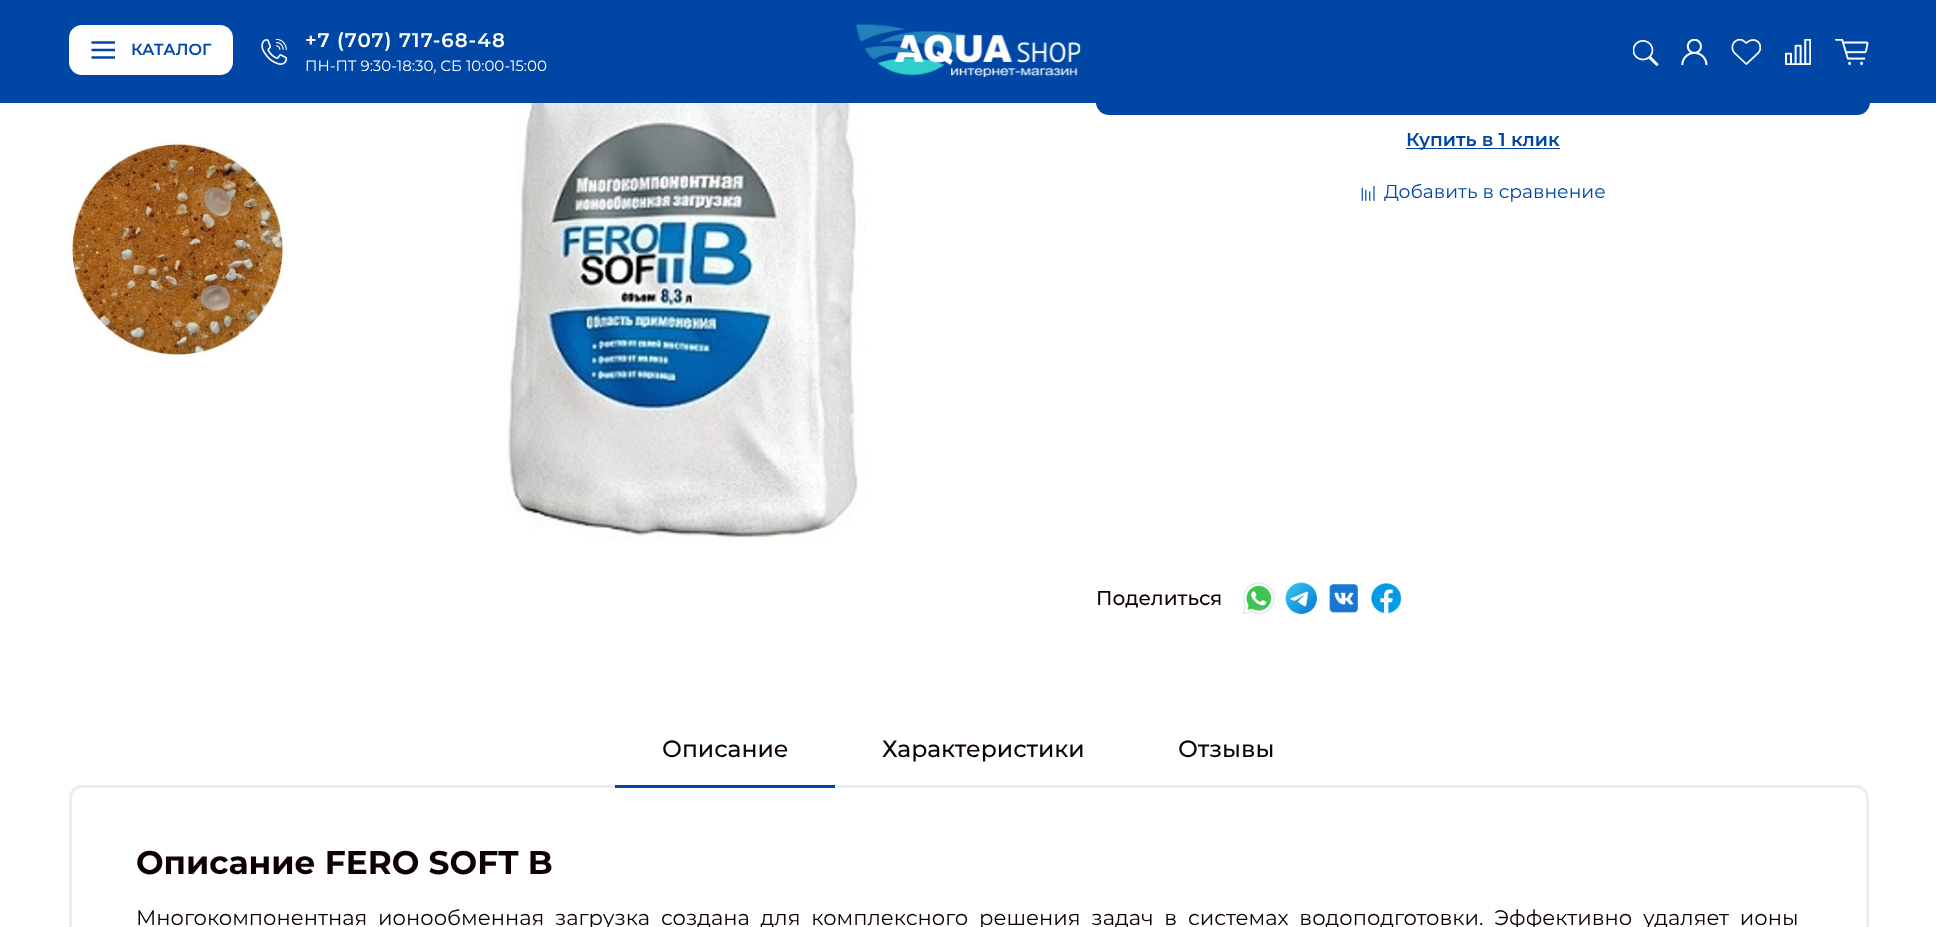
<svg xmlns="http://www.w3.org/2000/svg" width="1936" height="927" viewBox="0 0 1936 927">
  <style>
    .t1 { font: 600 16px Montserrat; fill: #0046a5; }
    .t2 { font: 600 19.75px Montserrat; letter-spacing: 1px; fill: #fff; }
    .t3 { font: 15px Montserrat; fill: #fff; }
    .t4 { font: 600 18.75px Montserrat; fill: #0046a5; }
    .t5 { font: 18.75px Montserrat; fill: #0046a5; }
    .t6 { font: 500 20px Montserrat; fill: #0d0008; }
    .t7 { font: 500 23.5px Montserrat; fill: #0d0008; }
    .t8 { font: bold 32.75px Montserrat; fill: #0d0008; }
    .t9 { font: 21.1px Montserrat; fill: #0d0008; }
  </style>
  <rect width="100%" height="100%" fill="#fff"/>
  <rect x="1096" y="53" width="774" height="62" rx="13" fill="#0046a5"/>
  <rect x="0" y="0" width="1936" height="103" fill="#0046a5"/>
  <rect x="69" y="25" width="164" height="50" rx="13" fill="#fff"/>
  <image x="91" y="41" width="24" height="18" href="images/1.png"/>
  <text x="131" y="55" class="t1">КАТАЛОГ</text>
  <image x="261" y="39" width="27" height="26" href="images/2.png"/>
  <text x="305" y="47" class="t2">+7 (707) 717-68-48</text>
  <text x="305" y="71" class="t3">ПН-ПТ 9:30-18:30, СБ 10:00-15:00</text>
  <image x="856" y="24" width="225" height="53" href="images/3.png"/>
  <image x="1633" y="40" width="26" height="26" href="images/4.png"/>
  <image x="1681" y="39" width="27" height="26" href="images/5.png"/>
  <image x="1731" y="39" width="30" height="26" href="images/6.png"/>
  <image x="1785" y="39" width="26" height="26" href="images/7.png"/>
  <image x="1835" y="39" width="34" height="26" href="images/8.png"/>
  <image x="69" y="141" width="216" height="216" href="images/9.png"/>
  <image x="504" y="103" width="362" height="438" href="images/10.png"/>
  <rect x="1406" y="148" width="154" height="1" fill="#0046a5"/>
  <text x="1406" y="146" class="t4">Купить в 1 клик</text>
  <image x="1361" y="185" width="14" height="16" href="images/11.png"/>
  <text x="1384" y="198" class="t5">Добавить в сравнение</text>
  <text x="1096" y="605" class="t6">Поделиться</text>
  <image x="1243" y="582" width="32" height="32" href="images/12.png"/>
  <image x="1285" y="582" width="32" height="32" href="images/13.png"/>
  <image x="1329" y="584" width="29" height="29" href="images/14.png"/>
  <image x="1371" y="583" width="31" height="31" href="images/15.png"/>
  <rect x="70.5" y="786.5" width="1797" height="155" rx="11.5" fill="none" stroke="#ededed" stroke-width="3"/>
  <rect x="615" y="785" width="220" height="3" fill="#0046a5"/>
  <text x="662" y="757" class="t7">Описание</text>
  <text x="882" y="757" class="t7">Характеристики</text>
  <text x="1178" y="757" class="t7">Отзывы</text>
  <text x="136" y="874" class="t8">Описание FERO SOFT B</text>
  <text x="136" y="925" word-spacing="5.25" class="t9">Многокомпонентная ионообменная загрузка создана для комплексного решения задач в системах водоподготовки. Эффективно удаляет ионы</text>
</svg>
